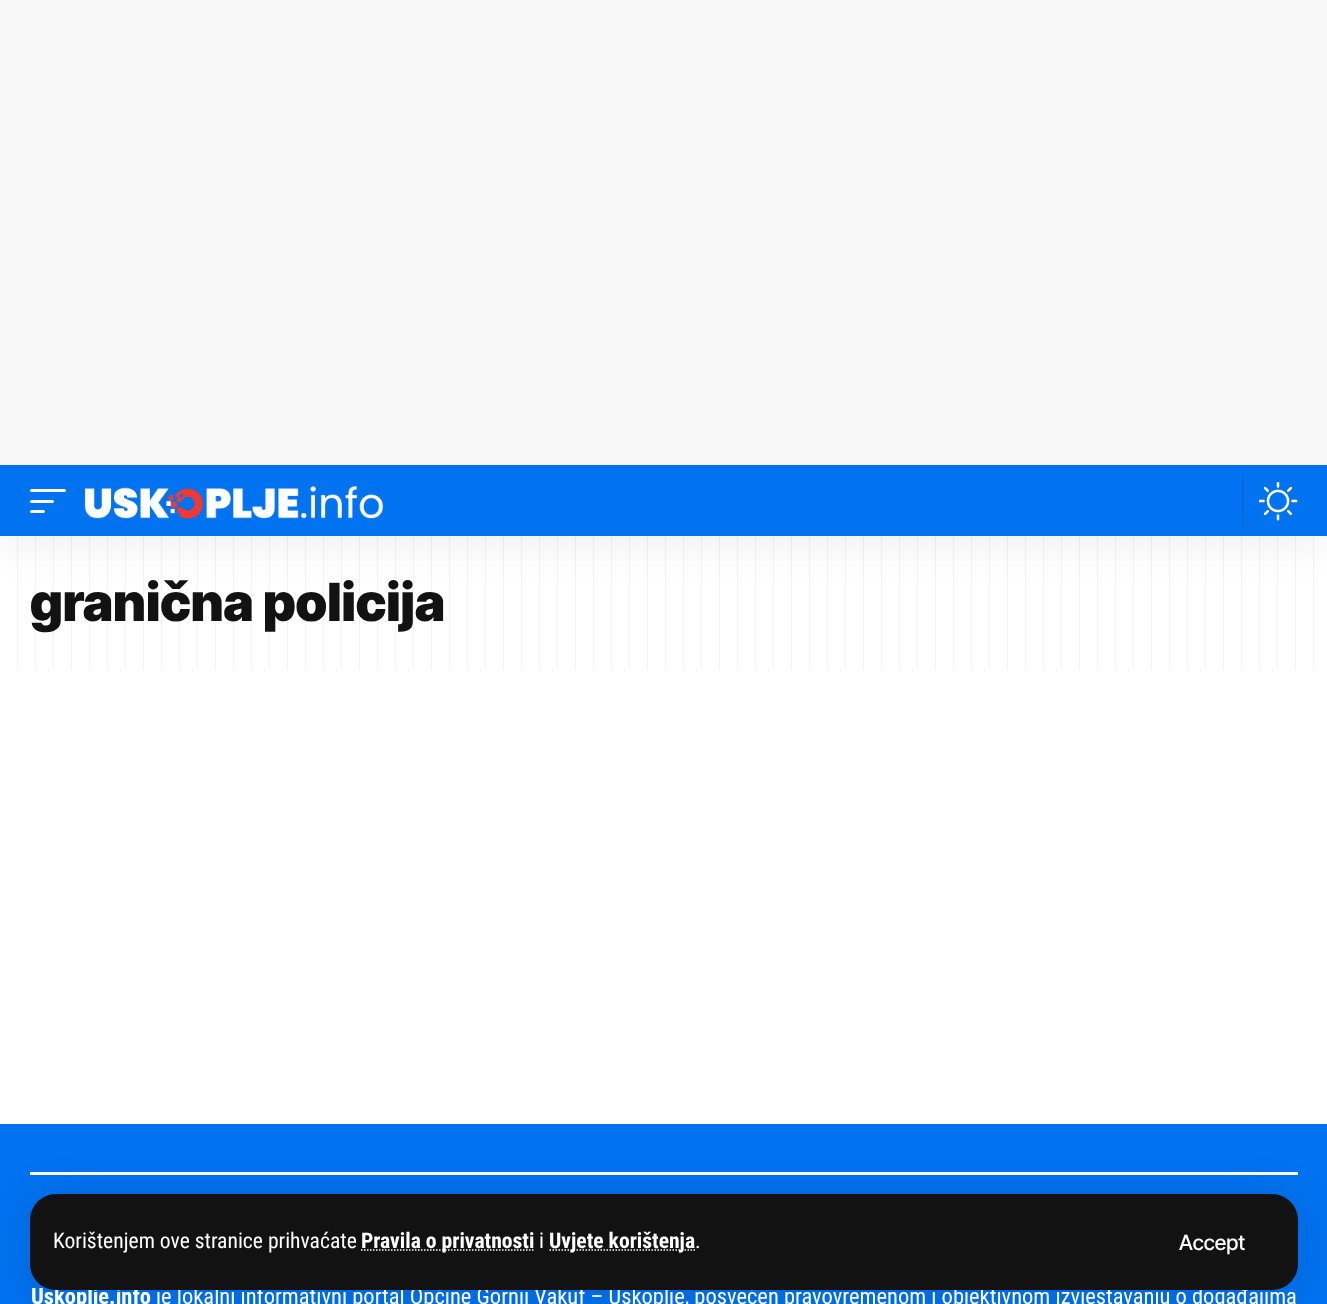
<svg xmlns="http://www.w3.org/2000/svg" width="1327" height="1304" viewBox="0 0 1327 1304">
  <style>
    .t1 { font: 900 52.5px Inter Tight; fill: #121212; }
    .t2 { font: bold 22.5px Roboto Condensed; fill: #fff; }
    .t3 { font: 22.5px Roboto Condensed; fill: #fff; }
    .t4 { font: 21.6px Roboto Condensed; fill: #fff; }
    .t5 { font: bold 21.6px Roboto Condensed; fill: #fff; }
    .t6 { font: 500 21px Inter Tight; fill: #fff; }
  </style>
  <defs>
    <clipPath id="clip1"><rect x="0" y="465" width="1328" height="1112"/></clipPath>
  </defs>
  <rect width="100%" height="100%" fill="#fff"/>
  <rect x="0" y="0" width="1327" height="465" fill="#f8f8f8"/>
  <text x="30" y="621" class="t1">granična policija</text>
  <image x="17" y="536" width="1297" height="133" href="images/1.png"/>
  <g clip-path="url(#clip1)">
    <rect x="0" y="471" width="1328" height="71" fill="#00000012" filter="blur(22.5px)"/>
  </g>
  <rect x="0" y="465" width="1327" height="71" fill="#0172f0"/>
  <rect x="30" y="489" width="36" height="3" rx="1.5" fill="#fff"/>
  <rect x="30" y="500" width="24" height="3" rx="1.5" fill="#fff"/>
  <rect x="30" y="510" width="15" height="3" rx="1.5" fill="#fff"/>
  <image x="84" y="486" width="300" height="33" href="images/2.png"/>
  <rect x="1242" y="476" width="2" height="51" fill="#0169dc"/>
  <image x="1259" y="482" width="39" height="39" href="images/3.png"/>
  <rect x="0" y="1124" width="1327" height="180" fill="#0172f0"/>
  <rect x="30" y="1172" width="1268" height="3" fill="#fff"/>
  <rect x="30" y="1200" width="1268" height="96" rx="26" fill="#0000001f" filter="blur(22.5px)"/>
  <text x="31" y="1304" class="t2">Uskoplje.info</text>
  <text x="156" y="1304" class="t3">je lokalni informativni portal Općine Gornji Vakuf – Uskoplje, posvećen pravovremenom i objektivnom izvještavanju o događajima</text>
  <rect x="30" y="1194" width="1268" height="96" rx="26" fill="#121212"/>
  <text x="53" y="1248" class="t4">Korištenjem ove stranice prihvaćate</text>
  <path d="M361 1250H534.5" fill="none" stroke="#fff" stroke-width="1.5" stroke-dasharray="1.5 1.5"/>
  <text x="361" y="1248" class="t5">Pravila o privatnosti</text>
  <text x="539" y="1248" class="t4">i</text>
  <path d="M549.5 1250H695.5" fill="none" stroke="#fff" stroke-width="1.5" stroke-dasharray="1.5 1.5"/>
  <text x="549" y="1248" class="t5">Uvjete korištenja</text>
  <text x="695" y="1248" class="t4">.</text>
  <text x="1179" y="1250" class="t6">Accept</text>
</svg>
